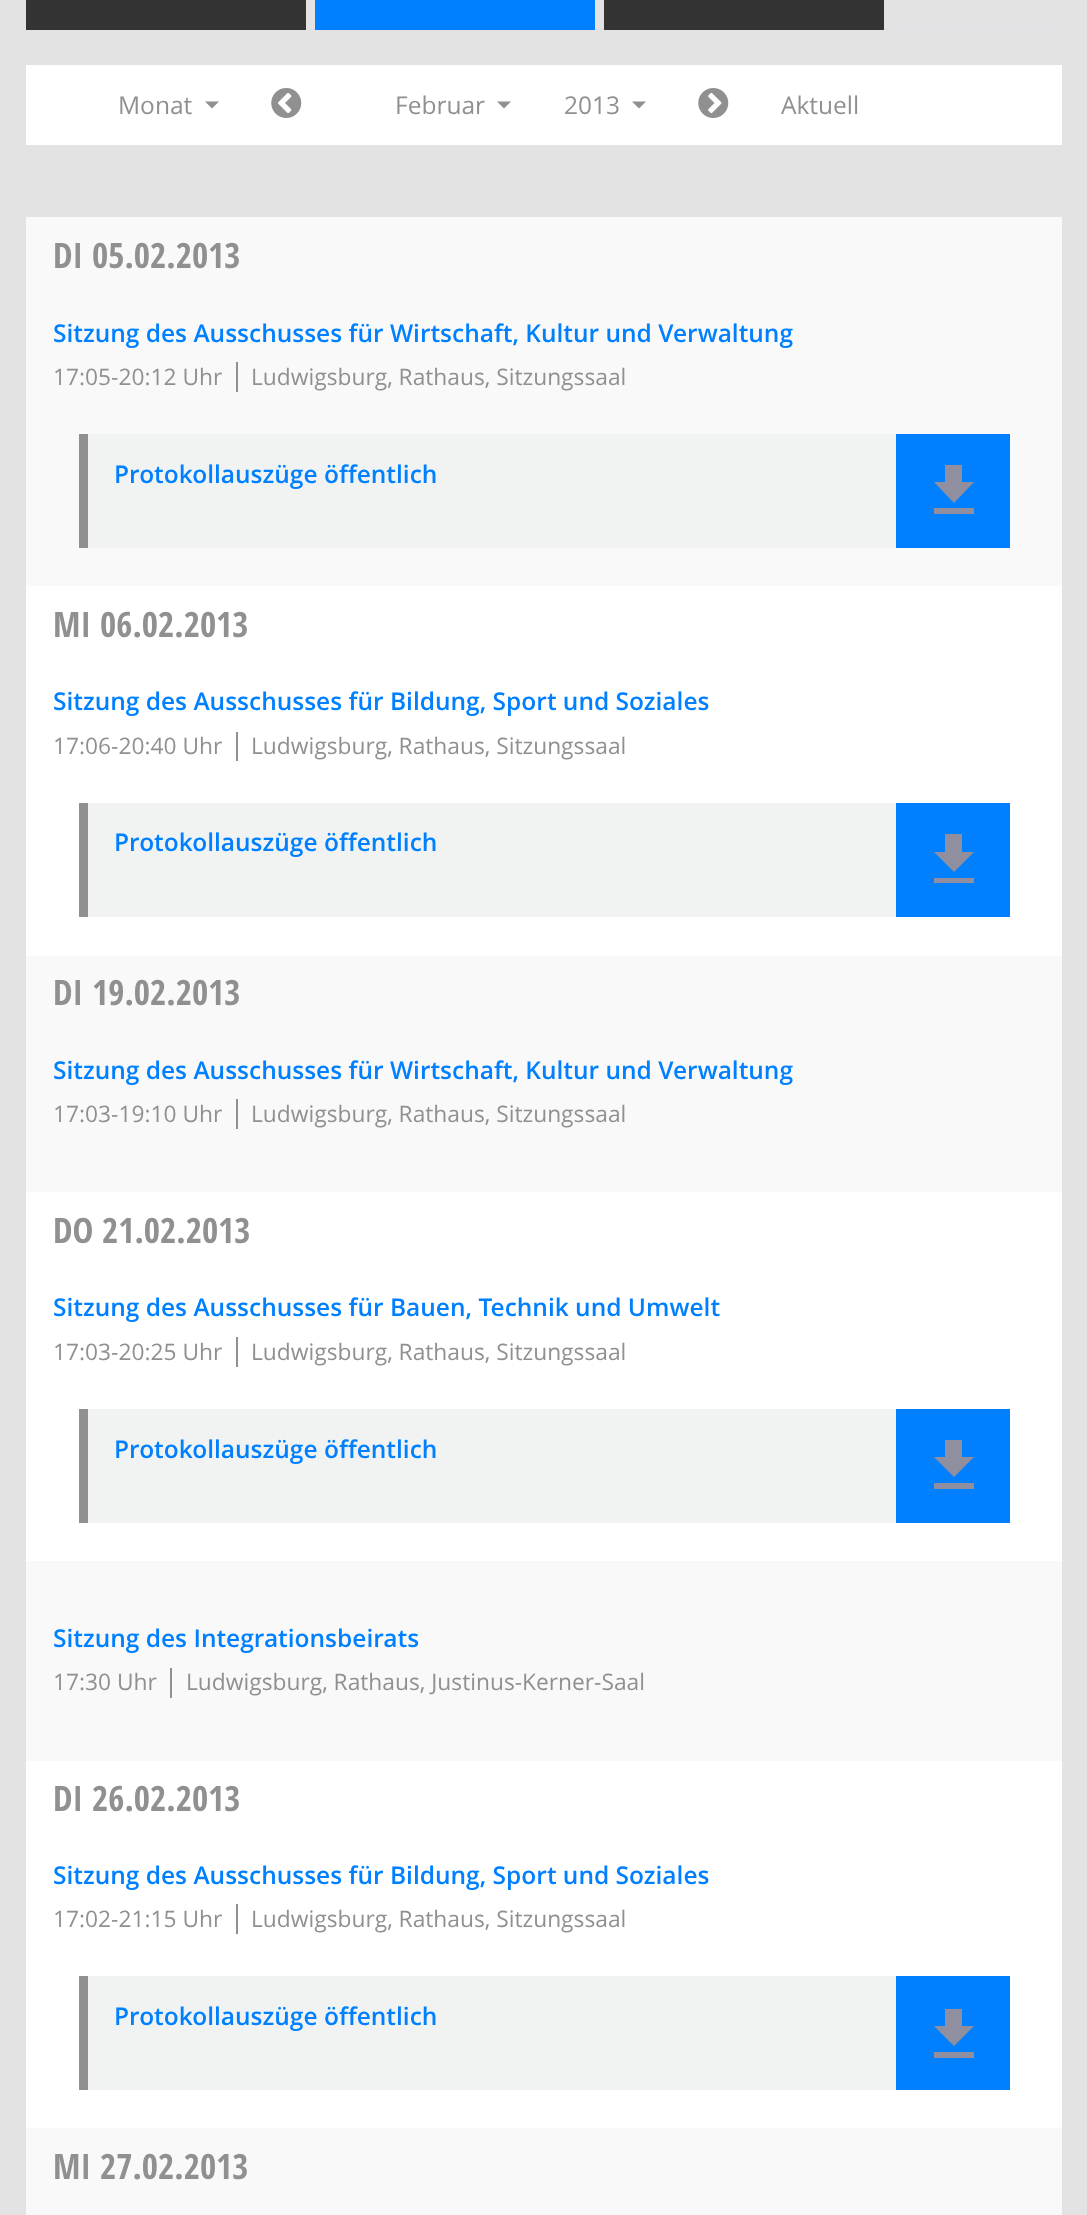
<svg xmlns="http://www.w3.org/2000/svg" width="1087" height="2215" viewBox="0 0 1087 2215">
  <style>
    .t1 { font: 24.5px Open Sans; fill: #909090; }
    .t2 { font: bold 35px Open Sans Condensed; fill: #909090; }
    .t3 { font: 600 24.5px Open Sans; fill: #0080ff; }
    .t4 { font: 22.75px Open Sans; fill: #909090; }
  </style>
  <rect width="100%" height="100%" fill="#e3e3e3"/>
  <rect x="306" y="28" width="756" height="2" fill="#dee2e6"/>
  <rect x="26" y="0" width="280" height="30" fill="#333"/>
  <rect x="315" y="0" width="280" height="30" fill="#0080ff"/>
  <rect x="604" y="0" width="280" height="30" fill="#333"/>
  <rect x="26" y="65" width="1036" height="80" fill="#fff"/>
  <text x="118" y="114" class="t1">Monat</text>
  <path d="M205 101.5H219L212 108.5Z" fill="#909090"/>
  <image x="271" y="88" width="31" height="30" href="images/1.png"/>
  <text x="395" y="114" class="t1">Februar</text>
  <path d="M497 101.5H511L504 108.5Z" fill="#909090"/>
  <text x="564" y="114" class="t1">2013</text>
  <path d="M632 101.5H646L639 108.5Z" fill="#909090"/>
  <image x="698" y="88" width="31" height="30" href="images/2.png"/>
  <text x="781" y="114" class="t1">Aktuell</text>
  <rect x="26" y="586" width="1036" height="1542" fill="#fff"/>
  <rect x="26" y="217" width="1036" height="369" fill="#f9f9f9"/>
  <text x="53" y="268" class="t2">DI</text>
  <text x="92" y="268" class="t2">05.02.2013</text>
  <text x="53" y="342" class="t3">Sitzung des Ausschusses für Wirtschaft, Kultur und Verwaltung</text>
  <text x="53" y="385" class="t4">17:05-20:12 Uhr</text>
  <rect x="236" y="362" width="2" height="30" fill="#909090"/>
  <text x="251" y="385" class="t4">Ludwigsburg, Rathaus, Sitzungssaal</text>
  <rect x="88" y="434" width="808" height="114" fill="#f0f3f2"/>
  <rect x="79" y="434" width="9" height="114" fill="#909090"/>
  <text x="114" y="483" class="t3">Protokollauszüge öffentlich</text>
  <rect x="896" y="434" width="114" height="114" fill="#0080ff"/>
  <path d="M974 482H962V465H945V482H934L954 503ZM934 508V514H974V508Z" fill="#8f8fa0"/>
  <text x="53" y="637" class="t2">MI</text>
  <text x="100" y="637" class="t2">06.02.2013</text>
  <text x="53" y="710" class="t3">Sitzung des Ausschusses für Bildung, Sport und Soziales</text>
  <text x="53" y="754" class="t4">17:06-20:40 Uhr</text>
  <rect x="236" y="732" width="2" height="29" fill="#909090"/>
  <text x="251" y="754" class="t4">Ludwigsburg, Rathaus, Sitzungssaal</text>
  <rect x="88" y="803" width="808" height="114" fill="#f0f3f2"/>
  <rect x="79" y="803" width="9" height="114" fill="#909090"/>
  <text x="114" y="851" class="t3">Protokollauszüge öffentlich</text>
  <rect x="896" y="803" width="114" height="114" fill="#0080ff"/>
  <path d="M974 852H962V834H945V852H934L954 872ZM934 878V883H974V878Z" fill="#8f8fa0"/>
  <rect x="26" y="956" width="1036" height="236" fill="#f9f9f9"/>
  <text x="53" y="1005" class="t2">DI</text>
  <text x="92" y="1005" class="t2">19.02.2013</text>
  <text x="53" y="1079" class="t3">Sitzung des Ausschusses für Wirtschaft, Kultur und Verwaltung</text>
  <text x="53" y="1122" class="t4">17:03-19:10 Uhr</text>
  <rect x="236" y="1099" width="2" height="30" fill="#909090"/>
  <text x="251" y="1122" class="t4">Ludwigsburg, Rathaus, Sitzungssaal</text>
  <text x="53" y="1243" class="t2">DO</text>
  <text x="102" y="1243" class="t2">21.02.2013</text>
  <text x="53" y="1316" class="t3">Sitzung des Ausschusses für Bauen, Technik und Umwelt</text>
  <text x="53" y="1360" class="t4">17:03-20:25 Uhr</text>
  <rect x="236" y="1337" width="2" height="30" fill="#909090"/>
  <text x="251" y="1360" class="t4">Ludwigsburg, Rathaus, Sitzungssaal</text>
  <rect x="88" y="1409" width="808" height="114" fill="#f0f3f2"/>
  <rect x="79" y="1409" width="9" height="114" fill="#909090"/>
  <text x="114" y="1458" class="t3">Protokollauszüge öffentlich</text>
  <rect x="896" y="1409" width="114" height="114" fill="#0080ff"/>
  <path d="M974 1457H962V1440H945V1457H934L954 1477ZM934 1483V1489H974V1483Z" fill="#8f8fa0"/>
  <rect x="26" y="1561" width="1036" height="200" fill="#f9f9f9"/>
  <text x="53" y="1647" class="t3">Sitzung des Integrationsbeirats</text>
  <text x="53" y="1690" class="t4">17:30 Uhr</text>
  <rect x="170" y="1668" width="2" height="30" fill="#909090"/>
  <text x="186" y="1690" class="t4">Ludwigsburg, Rathaus, Justinus-Kerner-Saal</text>
  <text x="53" y="1811" class="t2">DI</text>
  <text x="92" y="1811" class="t2">26.02.2013</text>
  <text x="53" y="1884" class="t3">Sitzung des Ausschusses für Bildung, Sport und Soziales</text>
  <text x="53" y="1927" class="t4">17:02-21:15 Uhr</text>
  <rect x="236" y="1904" width="2" height="30" fill="#909090"/>
  <text x="251" y="1927" class="t4">Ludwigsburg, Rathaus, Sitzungssaal</text>
  <rect x="88" y="1976" width="808" height="114" fill="#f0f3f2"/>
  <rect x="79" y="1976" width="9" height="114" fill="#909090"/>
  <text x="114" y="2025" class="t3">Protokollauszüge öffentlich</text>
  <rect x="896" y="1976" width="114" height="114" fill="#0080ff"/>
  <path d="M974 2026H962V2009H945V2026H934L954 2046ZM934 2052V2058H974V2052Z" fill="#8f8fa0"/>
  <rect x="26" y="2128" width="1036" height="87" fill="#f9f9f9"/>
  <text x="53" y="2179" class="t2">MI</text>
  <text x="100" y="2179" class="t2">27.02.2013</text>
</svg>
